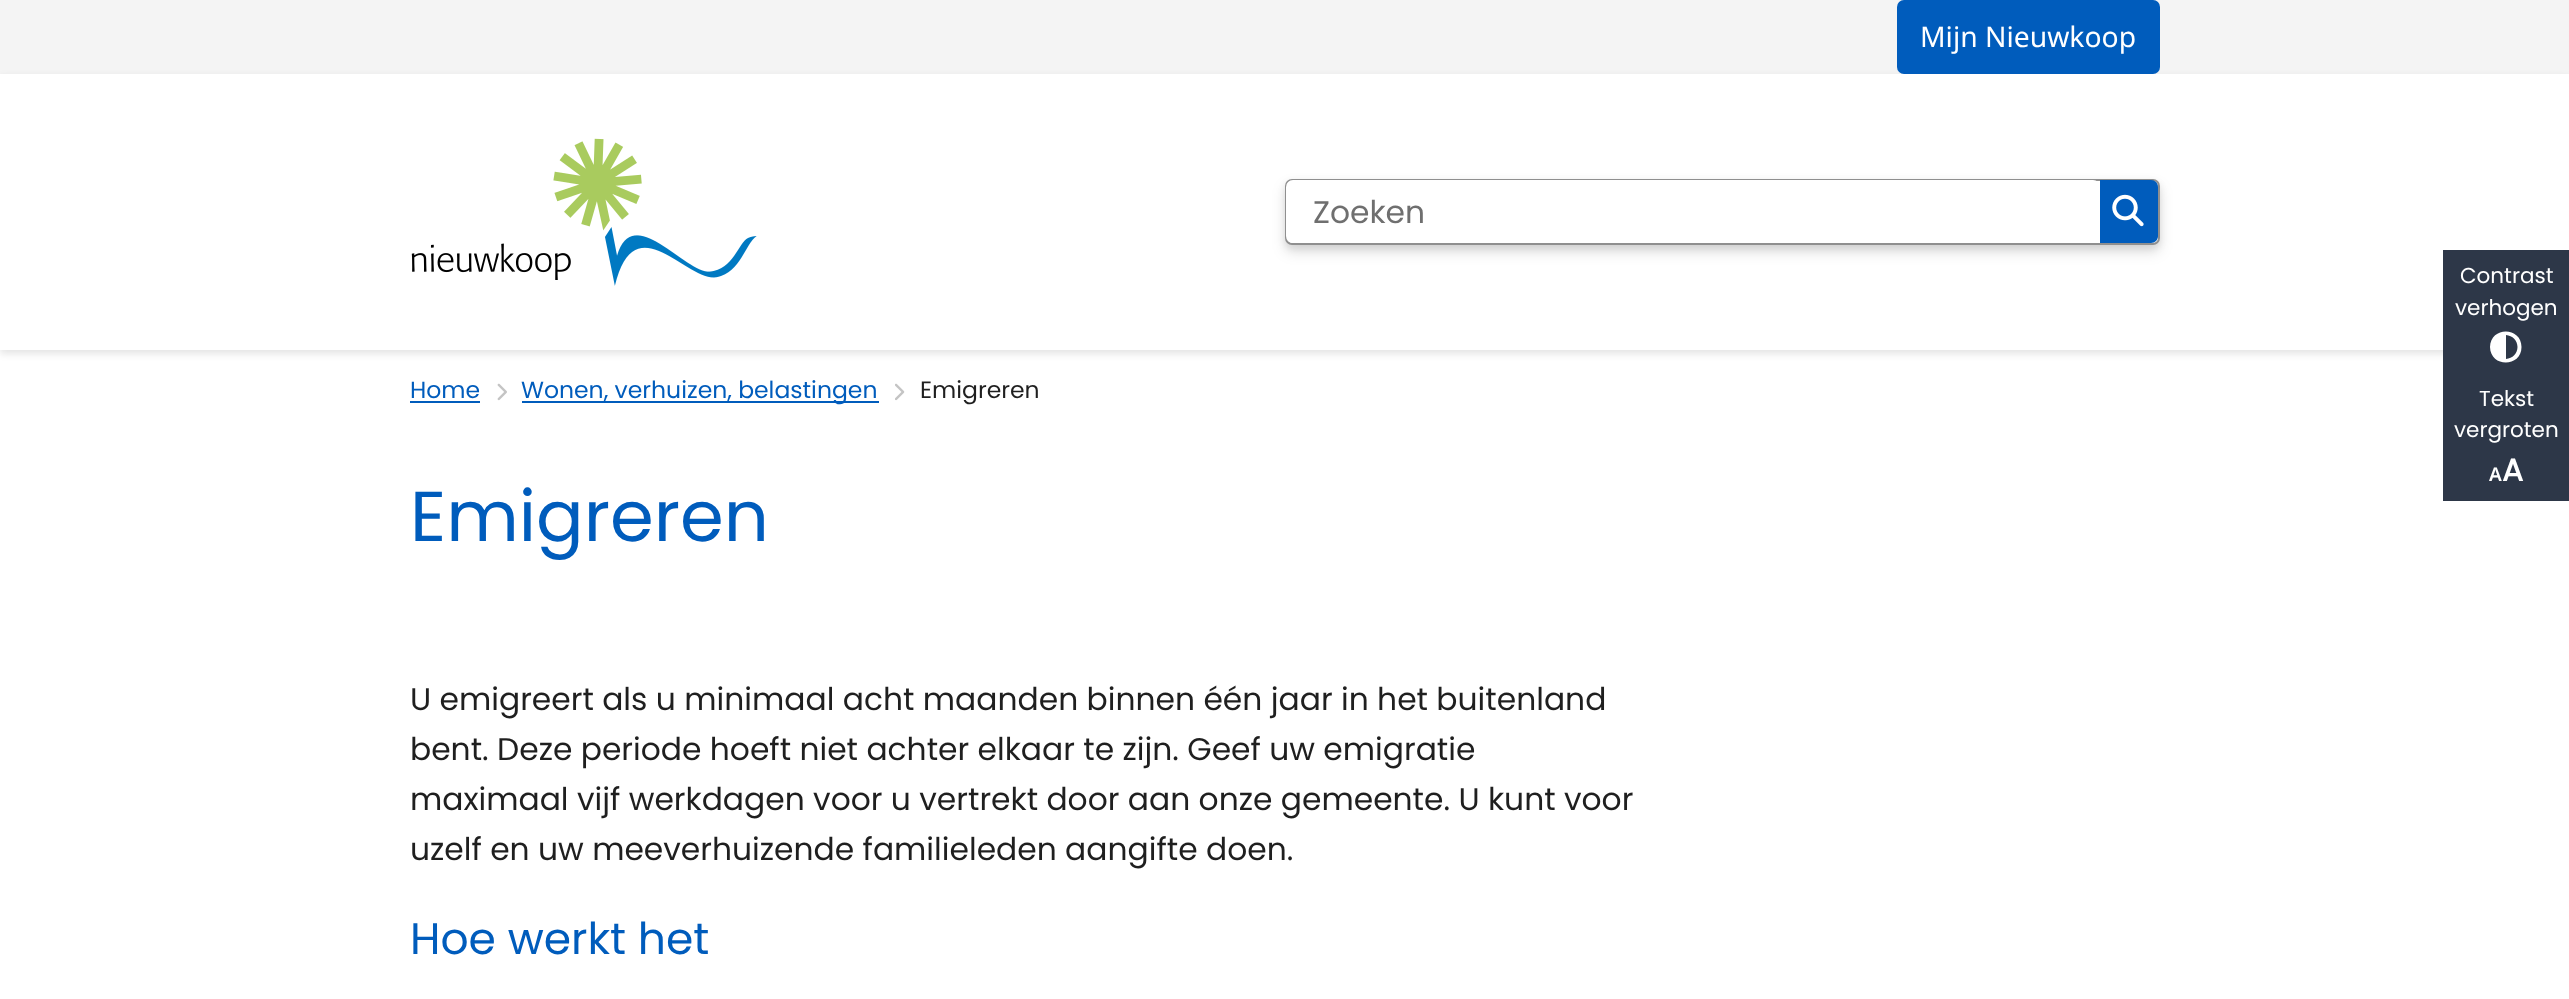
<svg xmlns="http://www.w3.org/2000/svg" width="2569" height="999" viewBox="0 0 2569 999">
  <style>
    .t1 { font: 28.25px Noto Sans; fill: #fff; }
    .t2 { font: 31.35px Poppins; fill: #6f6f6f; }
    .t3 { font: 23.5px Poppins; fill: #005cbc; }
    .t4 { font: 23.5px Poppins; fill: #1f1f1f; }
    .t5 { font: 70.5px Poppins; fill: #005cbc; }
    .t6 { font: 31.35px Poppins; fill: #1f1f1f; }
    .t7 { font: 44px Poppins; fill: #005cbc; }
    .t8 { font: 21.5px Poppins; fill: #fff; }
    .t9 { font: 600 19px Noto Sans; fill: #fff; }
    .t10 { font: bold 31.35px Poppins; fill: #fff; }
  </style>
  <rect width="100%" height="100%" fill="#fff"/>
  <rect x="0" y="0" width="2569" height="74" fill="#f4f4f4"/>
  <rect x="0" y="77" width="2569" height="277" fill="#0000001a" filter="blur(3.5px)"/>
  <rect x="1897" y="0" width="263" height="74" rx="7" fill="#005cbc"/>
  <text x="1920" y="47" class="t1">Mijn Nieuwkoop</text>
  <rect x="0" y="74" width="2569" height="276" fill="#fff"/>
  <image x="411" y="138" width="346" height="148" href="images/1.png"/>
  <rect x="1285" y="182" width="875" height="67" rx="7" fill="#00000014" filter="blur(3.5px)"/>
  <rect x="1285" y="186" width="875" height="66" rx="7" fill="#0000001f" filter="blur(7px)"/>
  <rect x="1286" y="180" width="873" height="64" rx="6" fill="#fff" stroke="#8f8f8f" stroke-width="2"/>
  <rect x="1286" y="180" width="814" height="63" rx="7" fill="#fff"/>
  <text x="1313" y="223" class="t2">Zoeken</text>
  <path d="M2100 180H2151C2155 180 2158 183 2158 187V236C2158 240 2155 243 2151 243H2100Z" fill="#005cbc"/>
  <image x="2112" y="194" width="32" height="33" href="images/2.png"/>
  <text x="410" y="398" class="t3">Home</text>
  <rect x="410" y="401" width="70" height="2" fill="#005cbc"/>
  <image x="497" y="383" width="10" height="18" href="images/3.png"/>
  <rect x="522" y="401" width="357" height="2" fill="#005cbc"/>
  <text x="521" y="398" class="t3">Wonen, verhuizen, belastingen</text>
  <image x="895" y="383" width="10" height="18" href="images/4.png"/>
  <text x="920" y="398" class="t4">Emigreren</text>
  <text x="410" y="541" class="t5">Emigreren</text>
  <text x="410" y="710" class="t6">U emigreert als u minimaal acht maanden binnen één jaar in het buitenland</text>
  <text x="410" y="760" class="t6">bent. Deze periode hoeft niet achter elkaar te zijn. Geef uw emigratie</text>
  <text x="410" y="810" class="t6">maximaal vijf werkdagen voor u vertrekt door aan onze gemeente. U kunt voor</text>
  <text x="410" y="860" class="t6">uzelf en uw meeverhuizende familieleden aangifte doen.</text>
  <text x="410" y="954" class="t7">Hoe werkt het</text>
  <rect x="2443" y="250" width="126" height="251" fill="#2d3748"/>
  <text x="2460" y="283" class="t8">Contrast</text>
  <text x="2455" y="315" class="t8">verhogen</text>
  <path d="M2517.5 347C2517.5 340.5 2512.5 335.5 2506 335V359C2512.5 358.5 2517.5 353.5 2517.5 347ZM2490 347C2490.5 326 2521.5 326.5 2521.5 347C2521.5 367.5 2490.5 368 2490 347Z" fill="#fff"/>
  <text x="2479" y="406" class="t8">Tekst</text>
  <text x="2454" y="437" class="t8">vergroten</text>
  <text x="2489" y="481" class="t9">A</text>
  <text x="2502" y="481" class="t10">A</text>
</svg>
